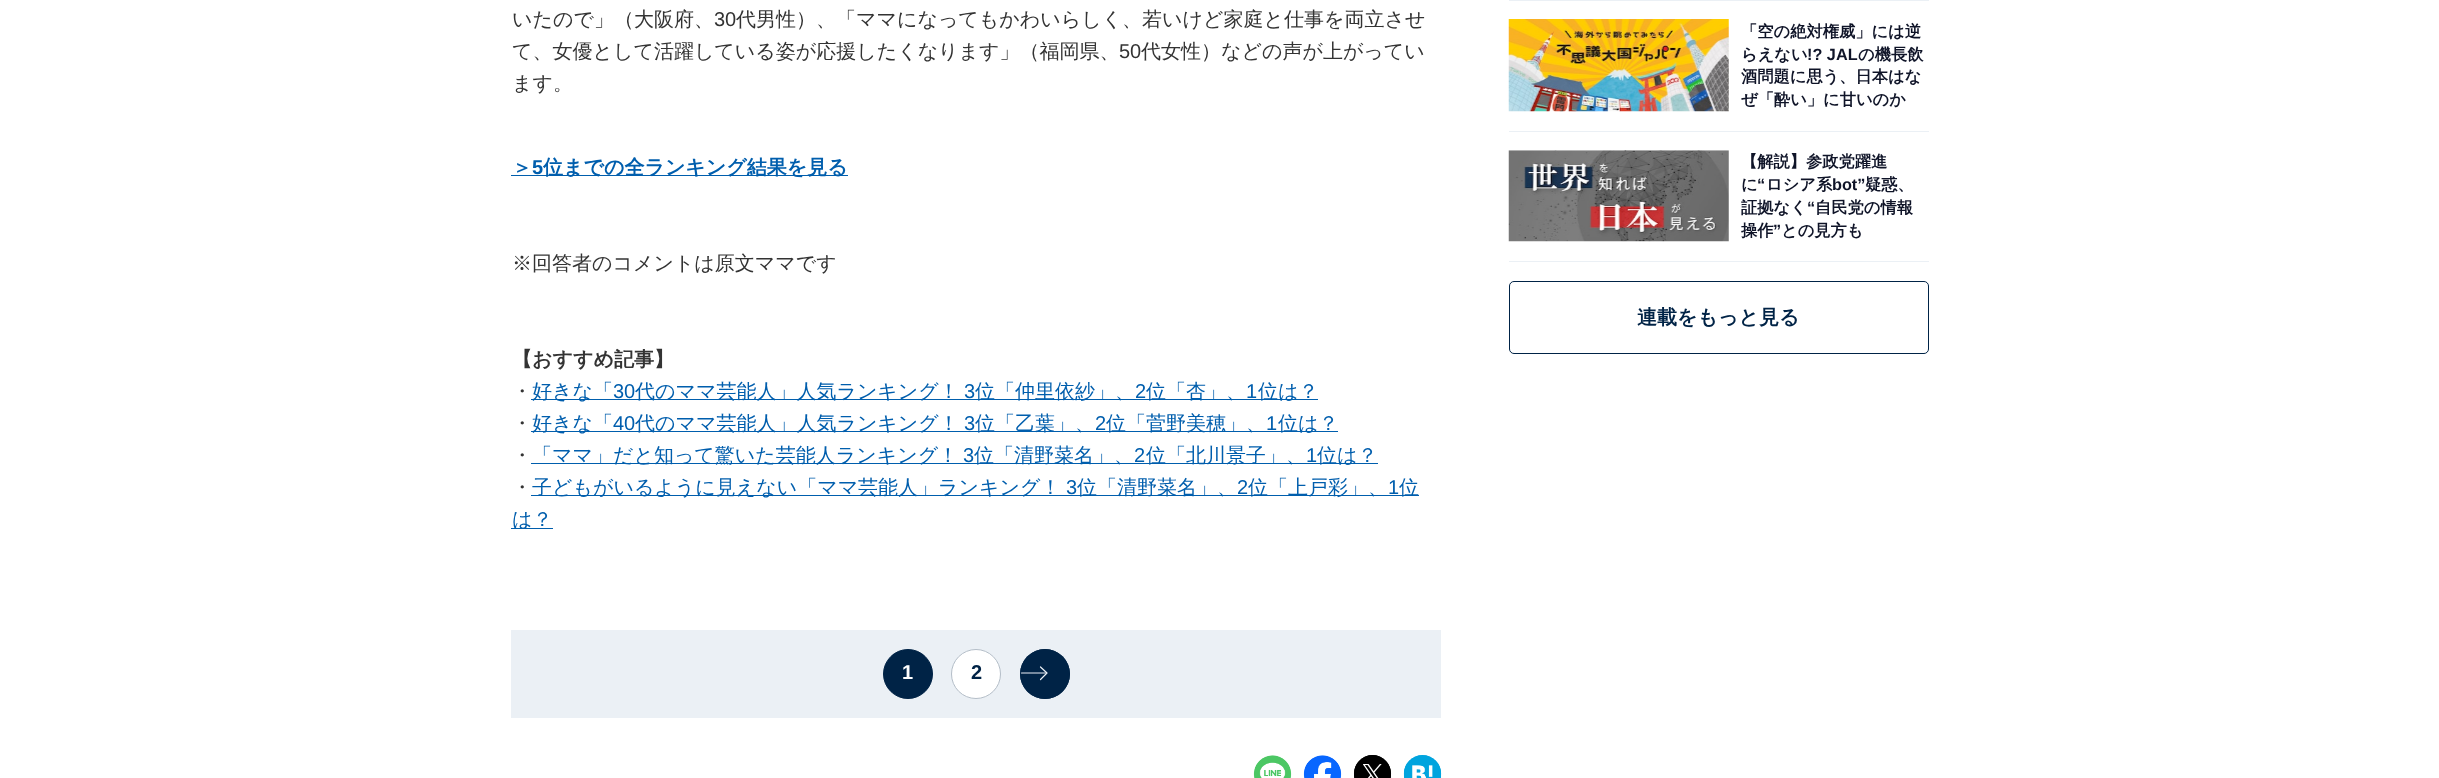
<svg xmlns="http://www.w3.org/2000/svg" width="2439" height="778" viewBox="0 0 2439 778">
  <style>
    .t1 { font: 500 20px WenQuanYi Zen Hei; fill: #333; }
    .t2 { font: 20px Liberation Sans; fill: #333; }
    .t3 { font: bold 20px WenQuanYi Zen Hei; fill: #005ead; }
    .t4 { font: bold 20px Liberation Sans; fill: #005ead; }
    .t5 { font: bold 20px WenQuanYi Zen Hei; fill: #333; }
    .t6 { font: 500 20px WenQuanYi Zen Hei; fill: #005ead; }
    .t7 { font: 20px Liberation Sans; fill: #005ead; }
    .t8 { font: bold 20px Liberation Sans; fill: #fff; }
    .t9 { font: bold 20px Liberation Sans; fill: #002346; }
    .t10 { font: bold 16.25px WenQuanYi Zen Hei; fill: #0f1428; }
    .t11 { font: bold 16.25px Liberation Sans; fill: #0f1428; }
    .t12 { font: bold 20px WenQuanYi Zen Hei; fill: #002346; }
  </style>
  <defs>
    <clipPath id="clip1"><rect x="1020" y="649" width="50" height="50" rx="25"/></clipPath>
  </defs>
  <rect width="100%" height="100%" fill="#fff"/>
  <text x="512" y="26" class="t1">いたので」（大阪府、</text>
  <text x="714" y="26" class="t2">30</text>
  <text x="736" y="26" class="t1">代男性）、「ママになってもかわいらしく、若いけど家庭と仕事を両立させ</text>
  <text x="512" y="58" class="t1">て、女優として活躍している姿が応援したくなります」（福岡県、</text>
  <text x="1119" y="58" class="t2">50</text>
  <text x="1141" y="58" class="t1">代女性）などの声が上がってい</text>
  <text x="512" y="90" class="t1">ます。</text>
  <text x="512" y="174" class="t3">＞</text>
  <rect x="511" y="175" width="337" height="1" fill="#005ead"/>
  <text x="532" y="174" class="t4">5</text>
  <text x="543" y="174" class="t3">位までの全ランキング結果を見る</text>
  <text x="512" y="270" class="t1">※回答者のコメントは原文ママです</text>
  <text x="512" y="366" class="t5">【おすすめ記事】</text>
  <text x="512" y="398" class="t1">・</text>
  <rect x="531" y="399" width="787" height="1" fill="#005ead"/>
  <text x="532" y="398" class="t6">好きな「</text>
  <text x="613" y="398" class="t7">30</text>
  <text x="635" y="398" class="t6">代のママ芸能人」人気ランキング！</text>
  <text x="964" y="398" class="t7">3</text>
  <text x="975" y="398" class="t6">位「仲里依紗」、</text>
  <text x="1135" y="398" class="t7">2</text>
  <text x="1146" y="398" class="t6">位「杏」、</text>
  <text x="1246" y="398" class="t7">1</text>
  <text x="1258" y="398" class="t6">位は？</text>
  <text x="512" y="430" class="t1">・</text>
  <rect x="531" y="431" width="807" height="1" fill="#005ead"/>
  <text x="532" y="430" class="t6">好きな「</text>
  <text x="613" y="430" class="t7">40</text>
  <text x="635" y="430" class="t6">代のママ芸能人」人気ランキング！</text>
  <text x="964" y="430" class="t7">3</text>
  <text x="975" y="430" class="t6">位「乙葉」、</text>
  <text x="1095" y="430" class="t7">2</text>
  <text x="1106" y="430" class="t6">位「菅野美穂」、</text>
  <text x="1266" y="430" class="t7">1</text>
  <text x="1278" y="430" class="t6">位は？</text>
  <text x="512" y="462" class="t1">・</text>
  <rect x="531" y="463" width="847" height="1" fill="#005ead"/>
  <text x="532" y="462" class="t6">「ママ」だと知って驚いた芸能人ランキング！</text>
  <text x="963" y="462" class="t7">3</text>
  <text x="974" y="462" class="t6">位「清野菜名」、</text>
  <text x="1134" y="462" class="t7">2</text>
  <text x="1146" y="462" class="t6">位「北川景子」、</text>
  <text x="1306" y="462" class="t7">1</text>
  <text x="1317" y="462" class="t6">位は？</text>
  <text x="512" y="494" class="t1">・</text>
  <rect x="531" y="495" width="888" height="1" fill="#005ead"/>
  <text x="532" y="494" class="t6">子どもがいるように見えない「ママ芸能人」ランキング！</text>
  <text x="1066" y="494" class="t7">3</text>
  <text x="1077" y="494" class="t6">位「清野菜名」、</text>
  <text x="1237" y="494" class="t7">2</text>
  <text x="1248" y="494" class="t6">位「上戸彩」、</text>
  <text x="1388" y="494" class="t7">1</text>
  <text x="1399" y="494" class="t6">位</text>
  <rect x="511" y="528" width="42" height="1" fill="#005ead"/>
  <text x="512" y="526" class="t6">は？</text>
  <rect x="511" y="630" width="930" height="88" fill="#ebf0f5"/>
  <circle cx="908" cy="674" r="24.5" fill="#002346" stroke="#002346"/>
  <text x="902" y="679" class="t8">1</text>
  <circle cx="976" cy="674" r="24.5" fill="#fff" stroke="#b4bec8"/>
  <text x="971" y="679" class="t9">2</text>
  <circle cx="1045" cy="674" r="25" fill="#002346"/>
  <path d="M1040.5 667L1047 673M1040.5 679.5L1047 673" fill="none" stroke="#ebf0f5" stroke-width="1.2" stroke-linecap="round"/>
  <g clip-path="url(#clip1)">
    <path d="M1046 673H1015" fill="none" stroke="#ebf0f5" stroke-width="1.2"/>
  </g>
  <circle cx="1045" cy="674" r="24.5" fill="none" stroke="#002346"/>
  <image x="1253" y="755" width="39" height="23" href="images/1.png"/>
  <image x="1303" y="755" width="39" height="23" href="images/2.png"/>
  <rect x="1354" y="755" width="37" height="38" rx="18.5" fill="#000"/>
  <image x="1363" y="764" width="19" height="14" href="images/3.png"/>
  <rect x="1354.5" y="755.5" width="36" height="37" rx="18" fill="none" stroke="#000"/>
  <rect x="1404" y="755" width="37" height="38" rx="18.5" fill="#00a4de"/>
  <image x="1403" y="755" width="39" height="23" href="images/4.png"/>
  <rect x="1509" y="0" width="420" height="1" fill="#ebf0f5"/>
  <rect x="1509" y="131" width="420" height="1" fill="#ebf0f5"/>
  <image x="1508" y="19" width="221" height="93" href="images/5.png"/>
  <text x="1741" y="37" class="t10">「空の絶対権威」には逆</text>
  <text x="1741" y="60" class="t10">らえない</text>
  <text x="1807" y="60" class="t11">!? JAL</text>
  <text x="1858" y="60" class="t10">の機長飲</text>
  <text x="1741" y="82" class="t10">酒問題に思う、日本はな</text>
  <text x="1741" y="105" class="t10">ぜ「酔い」に甘いのか</text>
  <rect x="1509" y="261" width="420" height="1" fill="#ebf0f5"/>
  <image x="1508" y="150" width="221" height="92" href="images/6.png"/>
  <text x="1741" y="167" class="t10">【解説】参政党躍進</text>
  <text x="1741" y="190" class="t10">に</text>
  <text x="1757" y="190" class="t11">“</text>
  <text x="1766" y="190" class="t10">ロシア系</text>
  <text x="1832" y="190" class="t11">bot”</text>
  <text x="1865" y="190" class="t10">疑惑、</text>
  <text x="1741" y="213" class="t10">証拠なく</text>
  <text x="1807" y="213" class="t11">“</text>
  <text x="1815" y="213" class="t10">自民党の情報</text>
  <text x="1741" y="236" class="t10">操作</text>
  <text x="1773" y="236" class="t11">”</text>
  <text x="1781" y="236" class="t10">との見方も</text>
  <rect x="1509.5" y="281.5" width="419" height="72" rx="4.5" fill="none" stroke="#002346"/>
  <text x="1637" y="324" class="t12">連載をもっと見る</text>
</svg>
